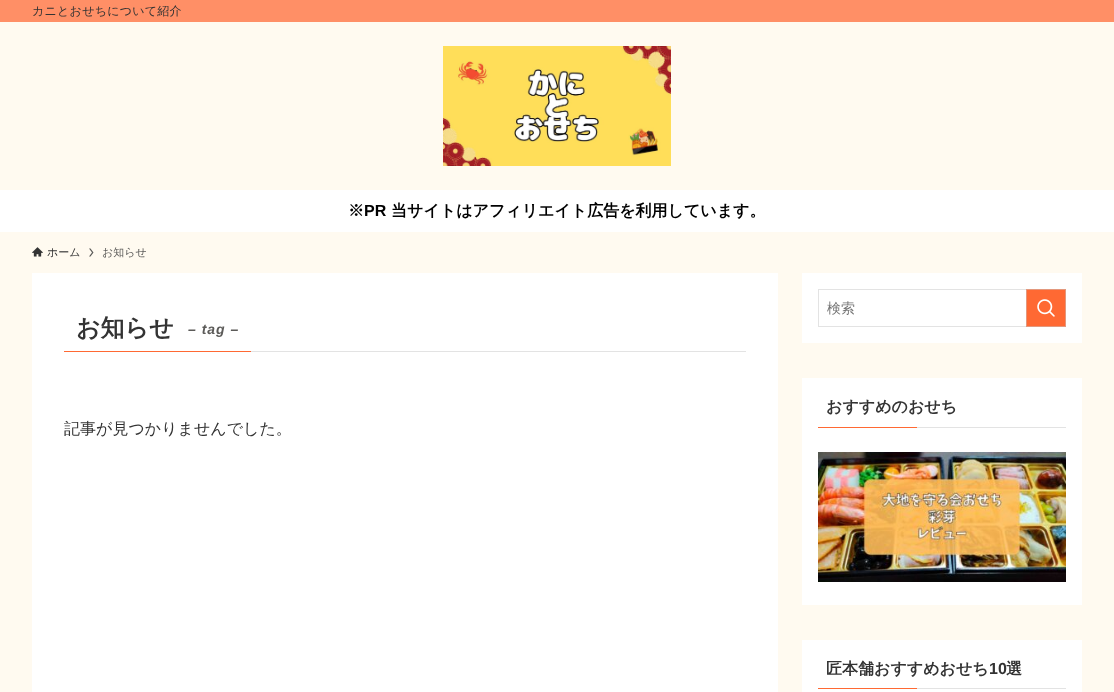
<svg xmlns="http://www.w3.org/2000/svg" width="1114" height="692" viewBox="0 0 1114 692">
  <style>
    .t1 { font: 500 12px WenQuanYi Zen Hei; letter-spacing: 0.25px; fill: #333; }
    .t2 { font: bold 16px WenQuanYi Zen Hei; fill: #000; }
    .t3 { font: bold 16px Liberation Sans; fill: #000; }
    .t4 { font: 500 11px WenQuanYi Zen Hei; fill: #333; }
    .t5 { font: 500 11px WenQuanYi Zen Hei; fill: #5c5b59; }
    .t6 { font: bold 24px WenQuanYi Zen Hei; fill: #333; }
    .t7 { font: italic bold 14px Liberation Sans; letter-spacing: 1px; fill: #5c5b59; }
    .t8 { font: 500 16px WenQuanYi Zen Hei; fill: #333; }
    .t9 { font: 500 14px WenQuanYi Zen Hei; fill: #757575; }
    .t10 { font: bold 16px WenQuanYi Zen Hei; fill: #333; }
    .t11 { font: bold 16px Liberation Sans; fill: #333; }
  </style>
  <rect width="100%" height="100%" fill="#fffaf0"/>
  <rect x="0" y="0" width="1114" height="22" fill="#ff8f66"/>
  <text x="32" y="15" class="t1">カニとおせちについて紹介</text>
  <image x="443" y="46" width="228" height="120" href="images/1.png"/>
  <rect x="0" y="190" width="1114" height="42" fill="#fff"/>
  <text x="348" y="216" class="t2">※</text>
  <text x="364" y="216" class="t3">PR</text>
  <text x="391" y="216" class="t2">当サイトはアフィリエイト広告を利用しています。</text>
  <image x="32" y="247" width="11" height="10" href="images/2.png"/>
  <text x="47" y="256" class="t4">ホーム</text>
  <path d="M90.5 248.5H89L92 252.5L89 256.5H90.5L93.5 252.5Z" fill="#5c5b59"/>
  <text x="102" y="256" class="t5">お知らせ</text>
  <rect x="32" y="273" width="746" height="419" fill="#fff"/>
  <rect x="251" y="351" width="495" height="1" fill="#e3e3e3"/>
  <rect x="64" y="351" width="187" height="1" fill="#ff6933"/>
  <text x="76" y="336" class="t6">お知らせ</text>
  <text x="188" y="334" class="t7">– tag –</text>
  <text x="64" y="434" class="t8">記事が見つかりませんでした。</text>
  <rect x="802" y="273" width="280" height="70" fill="#fff"/>
  <rect x="818.5" y="289.5" width="247" height="37" fill="none" stroke="#e3e3e3"/>
  <text x="827" y="313" class="t9">検索</text>
  <rect x="1026.5" y="289.5" width="39" height="37" fill="#ff6933" stroke="#e3987d"/>
  <image x="1037" y="299" width="18" height="18" href="images/3.png"/>
  <rect x="802" y="378" width="280" height="227" fill="#fff"/>
  <text x="826" y="412" class="t10">おすすめのおせち</text>
  <rect x="818" y="427" width="99" height="1" fill="#ff6933"/>
  <rect x="917" y="427" width="149" height="1" fill="#e3e3e3"/>
  <image x="818" y="452" width="248" height="130" href="images/4.png"/>
  <rect x="802" y="640" width="280" height="52" fill="#fff"/>
  <text x="826" y="674" class="t10">匠本舗おすすめおせち</text>
  <text x="989" y="674" class="t11">10</text>
  <text x="1006" y="674" class="t10">選</text>
  <rect x="818" y="688" width="99" height="1" fill="#ff6933"/>
  <rect x="917" y="688" width="149" height="1" fill="#e3e3e3"/>
</svg>
